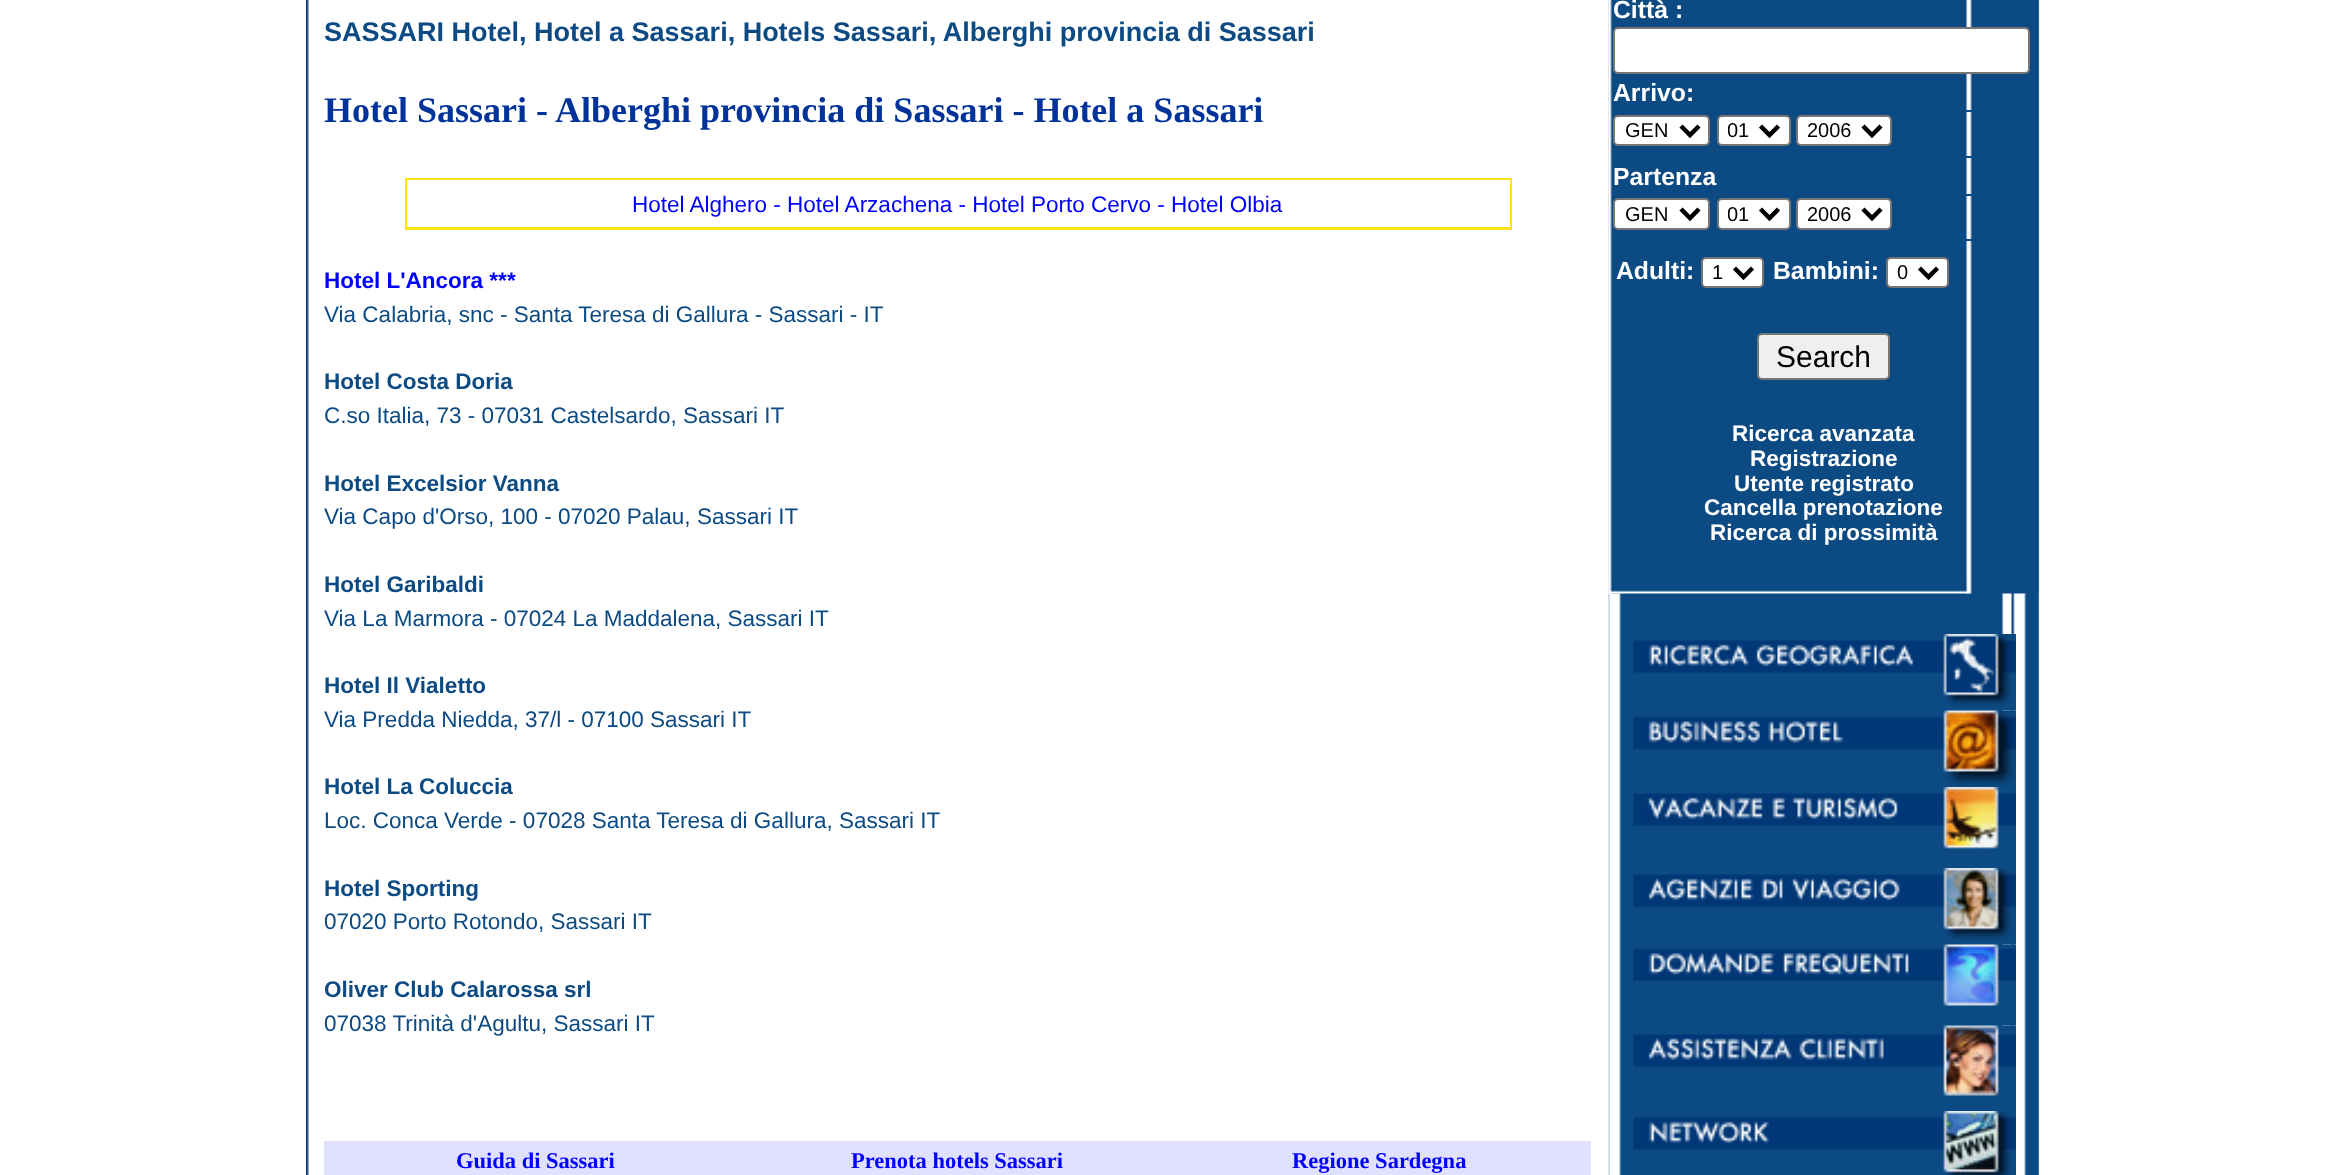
<svg xmlns="http://www.w3.org/2000/svg" width="2346" height="1175" viewBox="0 0 2346 1175">
  <style>
    .t1 { font: bold 27px Liberation Sans; fill: #0c4a83; }
    .t2 { font: bold 36px Liberation Serif; fill: #039; }
    .t3 { font: 22.5px Liberation Sans; fill: #00f; }
    .t4 { font: bold 22.5px Liberation Sans; fill: #00f; }
    .t5 { font: 22.5px Liberation Sans; fill: #0c4a83; }
    .t6 { font: bold 22.5px Liberation Sans; fill: #0c4a83; }
    .t7 { font: bold 22.5px Liberation Serif; fill: #00f; }
    .t8 { font: bold 24.75px Liberation Sans; fill: #fff; }
    .t9 { font: 20px Liberation Sans; fill: #000; }
    .t10 { font: 30px Liberation Sans; fill: #000; }
    .t11 { font: bold 22.5px Liberation Sans; fill: #fff; }
  </style>
  <defs>
    <clipPath id="clip1"><rect x="1728" y="117" width="25" height="27"/></clipPath>
    <clipPath id="clip2"><rect x="1728" y="200" width="25" height="27"/></clipPath>
  </defs>
  <rect width="100%" height="100%" fill="#fff"/>
  <image x="306" y="0" width="1734" height="1175" href="images/1.png"/>
  <text x="324" y="41" class="t1">SASSARI Hotel, Hotel a Sassari, Hotels Sassari, Alberghi provincia di Sassari</text>
  <text x="324" y="122" class="t2">Hotel Sassari - Alberghi provincia di Sassari - Hotel a Sassari</text>
  <rect x="405" y="178" width="1107" height="52" fill="#ffe118"/>
  <rect x="407" y="180" width="1103" height="47" fill="#fff"/>
  <text x="632" y="212" class="t3">Hotel Alghero - Hotel Arzachena - Hotel Porto Cervo - Hotel Olbia</text>
  <text x="324" y="288" class="t4">Hotel L'Ancora ***</text>
  <text x="324" y="322" class="t5">Via Calabria, snc - Santa Teresa di Gallura - Sassari - IT</text>
  <text x="324" y="389" class="t6">Hotel Costa Doria</text>
  <text x="324" y="423" class="t5">C.so Italia, 73 - 07031 Castelsardo, Sassari IT</text>
  <text x="324" y="491" class="t6">Hotel Excelsior Vanna</text>
  <text x="324" y="524" class="t5">Via Capo d'Orso, 100 - 07020 Palau, Sassari IT</text>
  <text x="324" y="592" class="t6">Hotel Garibaldi</text>
  <text x="324" y="626" class="t5">Via La Marmora - 07024 La Maddalena, Sassari IT</text>
  <text x="324" y="693" class="t6">Hotel Il Vialetto</text>
  <text x="324" y="727" class="t5">Via Predda Niedda, 37/l - 07100 Sassari IT</text>
  <text x="324" y="794" class="t6">Hotel La Coluccia</text>
  <text x="324" y="828" class="t5">Loc. Conca Verde - 07028 Santa Teresa di Gallura, Sassari IT</text>
  <text x="324" y="896" class="t6">Hotel Sporting</text>
  <text x="324" y="929" class="t5">07020 Porto Rotondo, Sassari IT</text>
  <text x="324" y="997" class="t6">Oliver Club Calarossa srl</text>
  <text x="324" y="1031" class="t5">07038 Trinità d'Agultu, Sassari IT</text>
  <rect x="324" y="1141" width="1267" height="34" fill="#e0e0ff"/>
  <text x="456" y="1168" class="t7">Guida di Sassari</text>
  <text x="851" y="1168" class="t7">Prenota hotels Sassari</text>
  <text x="1292" y="1168" class="t7">Regione Sardegna</text>
  <image x="1608" y="0" width="431" height="1175" href="images/2.png"/>
  <image x="1608" y="0" width="431" height="594" href="images/3.png"/>
  <text x="1613" y="18" class="t8">Città :</text>
  <rect x="1614" y="28" width="415" height="45" rx="4" fill="#fff" stroke="#767676" stroke-width="2"/>
  <text x="1613" y="101" class="t8">Arrivo:</text>
  <rect x="1614" y="111" width="419" height="46" fill="none" stroke="#0c4a83" stroke-width="2"/>
  <rect x="1614" y="116" width="95" height="29" rx="4" fill="#fff" stroke="#767676" stroke-width="2"/>
  <path d="M1681 126L1690 135L1699 126" fill="none" stroke="#000" stroke-width="4.5"/>
  <text x="1625" y="137" class="t9">GEN</text>
  <rect x="1718" y="116" width="72" height="29" rx="4" fill="#fff" stroke="#767676" stroke-width="2"/>
  <path d="M1760.5 126L1769.5 135L1778.5 126" fill="none" stroke="#000" stroke-width="4.5"/>
  <g clip-path="url(#clip1)">
    <text x="1727" y="137" class="t9">01</text>
  </g>
  <rect x="1797" y="116" width="94" height="29" rx="4" fill="#fff" stroke="#767676" stroke-width="2"/>
  <path d="M1863 126L1872 135L1881 126" fill="none" stroke="#000" stroke-width="4.5"/>
  <text x="1807" y="137" class="t9">2006</text>
  <text x="1613" y="185" class="t8">Partenza</text>
  <rect x="1614" y="195" width="419" height="45" fill="none" stroke="#0c4a83" stroke-width="2"/>
  <rect x="1614" y="199" width="95" height="30" rx="4" fill="#fff" stroke="#767676" stroke-width="2"/>
  <path d="M1681 209L1690 218L1699 209" fill="none" stroke="#000" stroke-width="4.5"/>
  <text x="1625" y="221" class="t9">GEN</text>
  <rect x="1718" y="199" width="72" height="30" rx="4" fill="#fff" stroke="#767676" stroke-width="2"/>
  <path d="M1760.5 209L1769.5 218L1778.5 209" fill="none" stroke="#000" stroke-width="4.5"/>
  <g clip-path="url(#clip2)">
    <text x="1727" y="221" class="t9">01</text>
  </g>
  <rect x="1797" y="199" width="94" height="30" rx="4" fill="#fff" stroke="#767676" stroke-width="2"/>
  <path d="M1863 209L1872 218L1881 209" fill="none" stroke="#000" stroke-width="4.5"/>
  <text x="1807" y="221" class="t9">2006</text>
  <text x="1616" y="279" class="t8">Adulti:</text>
  <rect x="1702" y="258" width="61" height="29" rx="4" fill="#fff" stroke="#767676" stroke-width="2"/>
  <path d="M1734.5 268L1743.5 277L1752.5 268" fill="none" stroke="#000" stroke-width="4.5"/>
  <text x="1712" y="279" class="t9">1</text>
  <text x="1773" y="279" class="t8">Bambini:</text>
  <rect x="1887" y="258" width="61" height="29" rx="4" fill="#fff" stroke="#767676" stroke-width="2"/>
  <path d="M1919.5 268L1928.5 277L1937.5 268" fill="none" stroke="#000" stroke-width="4.5"/>
  <text x="1897" y="279" class="t9">0</text>
  <rect x="1758" y="334" width="131" height="45" rx="4" fill="#efefef" stroke="#767676" stroke-width="2"/>
  <text x="1776" y="367" class="t10">Search</text>
  <text x="1732" y="441" class="t11">Ricerca avanzata</text>
  <text x="1750" y="466" class="t11">Registrazione</text>
  <text x="1734" y="491" class="t11">Utente registrato</text>
  <text x="1704" y="515" class="t11">Cancella prenotazione</text>
  <text x="1710" y="540" class="t11">Ricerca di prossimità</text>
  <image x="1608" y="580" width="361" height="14" href="images/4.png"/>
  <image x="1633" y="634" width="383" height="77" href="images/5.png"/>
  <image x="1633" y="710" width="383" height="77" href="images/6.png"/>
  <image x="1633" y="787" width="383" height="81" href="images/7.png"/>
  <image x="1633" y="868" width="383" height="77" href="images/8.png"/>
  <image x="1633" y="944" width="383" height="82" href="images/9.png"/>
  <image x="1633" y="1025" width="383" height="86" href="images/10.png"/>
  <image x="1633" y="1111" width="383" height="64" href="images/11.png"/>
</svg>
